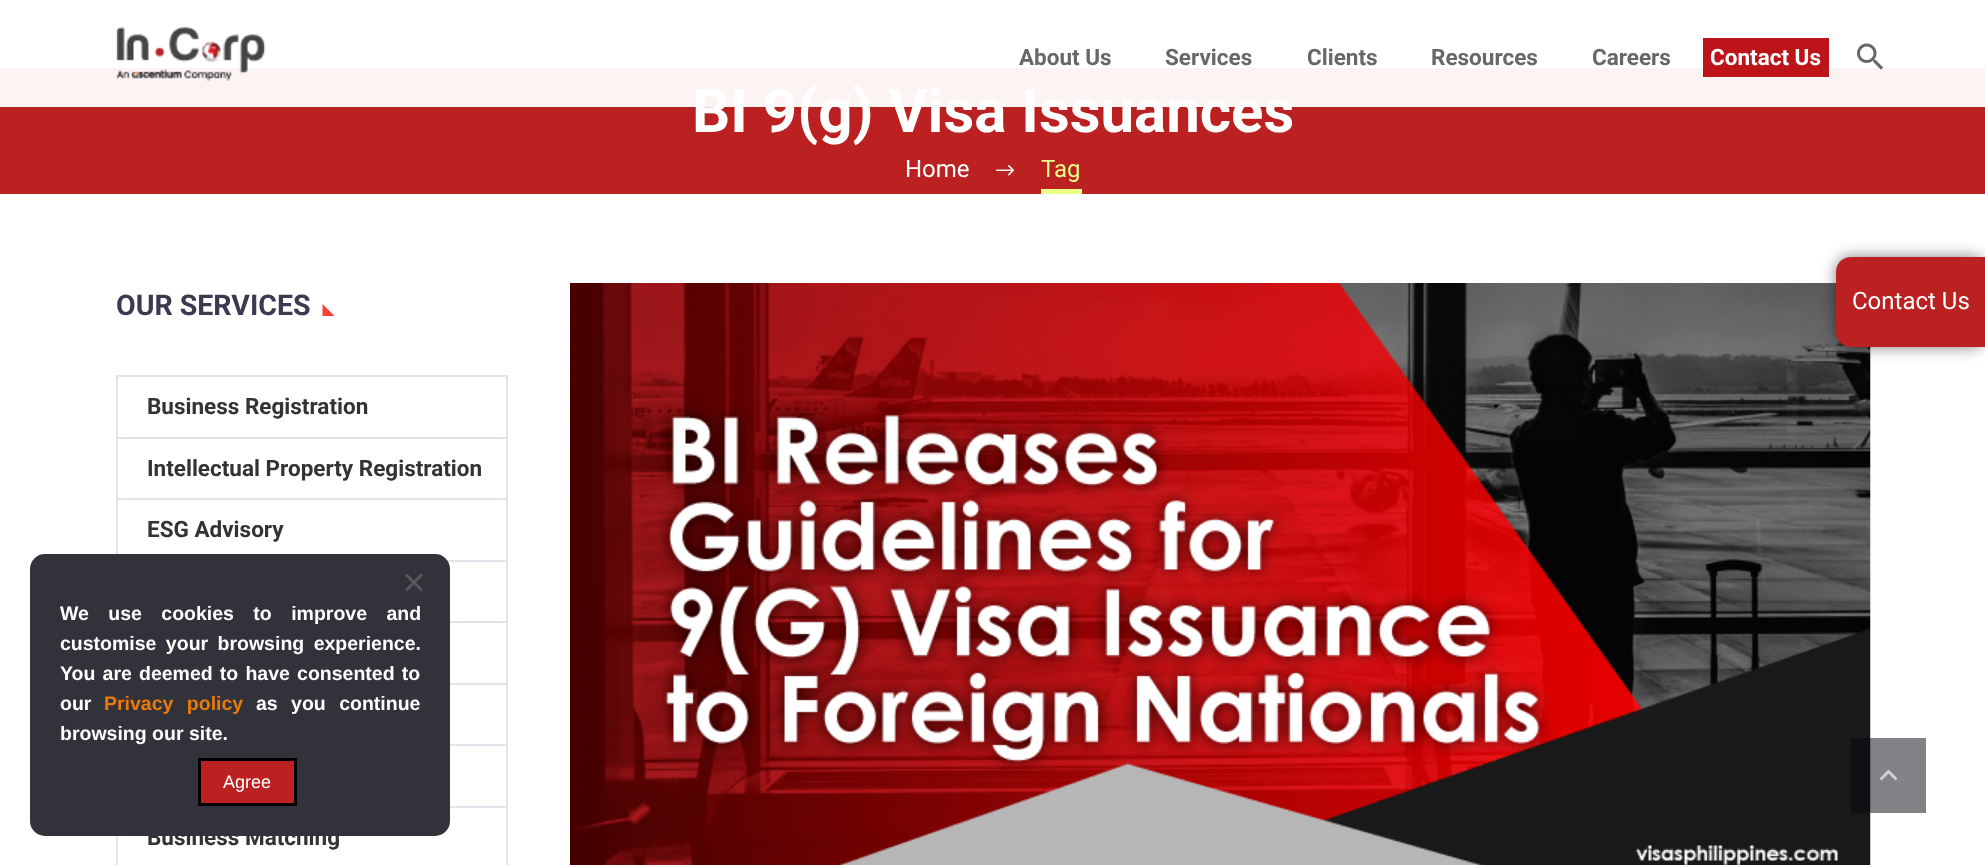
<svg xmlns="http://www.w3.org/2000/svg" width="1985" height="865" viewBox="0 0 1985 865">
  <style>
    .t1 { font: bold 60px Roboto; fill: #fff; }
    .t2 { font: bold 22.5px Roboto; fill: #666766; }
    .t3 { font: bold 22.5px Roboto; fill: #fff; }
    .t4 { font: 24px Roboto; fill: #fff; }
    .t5 { font: 24px Roboto; fill: #e7ff89; }
    .t6 { font: bold 28.5px Roboto; fill: #3c3950; }
    .t7 { font: bold 22.5px Roboto; fill: #333; }
    .t8 { font: bold 19.5px Liberation Sans; fill: #fff; }
    .t9 { font: bold 19.5px Liberation Sans; fill: #ea7b08; }
    .t10 { font: 18px Liberation Sans; fill: #fff; }
  </style>
  <defs>
    <clipPath id="clip1"><path d="M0 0H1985V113H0ZM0 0H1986V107H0Z" clip-rule="evenodd"/></clipPath>
  </defs>
  <rect width="100%" height="100%" fill="#fff"/>
  <rect x="0" y="68" width="1985" height="126" fill="#bb2121"/>
  <g clip-path="url(#clip1)">
    <rect x="0" y="0" width="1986" height="107" fill="#38455433" filter="blur(1.5px)"/>
  </g>
  <text x="692" y="132" class="t1">BI 9(g) Visa Issuances</text>
  <rect x="0" y="68" width="1985" height="39" fill="#fffffff2"/>
  <image x="116" y="26" width="150" height="55" href="images/1.png"/>
  <text x="1019" y="65" class="t2">About Us</text>
  <text x="1165" y="65" class="t2">Services</text>
  <text x="1307" y="65" class="t2">Clients</text>
  <text x="1431" y="65" class="t2">Resources</text>
  <text x="1592" y="65" class="t2">Careers</text>
  <rect x="1703" y="38" width="126" height="39" fill="#bc1419"/>
  <text x="1710" y="65" class="t3">Contact Us</text>
  <image x="1857" y="43" width="27" height="27" href="images/2.png"/>
  <text x="905" y="177" class="t4">Home</text>
  <image x="996" y="165" width="18" height="11" href="images/3.png"/>
  <rect x="1041" y="189" width="41" height="5" fill="#e7ff89"/>
  <text x="1041" y="177" class="t5">Tag</text>
  <text x="116" y="315" class="t6">OUR SERVICES</text>
  <path d="M322.5 304V316H334.5Z" fill="#f44336"/>
  <rect x="506" y="375" width="2" height="490" fill="#dfe5e8"/>
  <rect x="116" y="375" width="2" height="490" fill="#dfe5e8"/>
  <rect x="117" y="375" width="389" height="2" fill="#dfe5e8"/>
  <text x="147" y="414" class="t7">Business Registration</text>
  <rect x="117" y="437" width="389" height="2" fill="#dfe5e8"/>
  <text x="147" y="476" class="t7">Intellectual Property Registration</text>
  <rect x="117" y="498" width="389" height="2" fill="#dfe5e8"/>
  <text x="147" y="537" class="t7">ESG Advisory</text>
  <rect x="447" y="560" width="59" height="2" fill="#dfe5e8"/>
  <rect x="450" y="621" width="56" height="2" fill="#dfe5e8"/>
  <rect x="450" y="683" width="56" height="2" fill="#dfe5e8"/>
  <rect x="450" y="744" width="56" height="2" fill="#dfe5e8"/>
  <rect x="450" y="806" width="56" height="2" fill="#dfe5e8"/>
  <text x="147" y="845" class="t7">Business Matching</text>
  <image x="570" y="283" width="1301" height="582" href="images/4.png"/>
  <rect x="1851" y="738" width="75" height="75" fill="#06060f80"/>
  <path d="M1881.5 780.5L1888.5 773.5L1895.5 780.5L1897.5 778.5L1888.5 769.5L1879.5 778.5Z" fill="#ccd4da"/>
  <rect x="1836" y="257" width="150" height="90" rx="15" fill="#00000080" filter="blur(7.5px)"/>
  <path d="M1851 257H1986V347H1851C1842.5 347 1836 340.5 1836 332V272C1836 263.5 1842.5 257 1851 257Z" fill="#bb2121"/>
  <text x="1852" y="309" class="t4">Contact Us</text>
  <rect x="30" y="554" width="420" height="282" rx="15" fill="#32323a"/>
  <path d="M421 573.5L423 575.5L407 591.5L405 589.5Z" fill="#59595d"/>
  <path d="M405 575.5L407 573.5L423 589.5L421 591.5Z" fill="#59595d"/>
  <text x="60" y="620" word-spacing="14" class="t8">We use cookies to improve and</text>
  <text x="60" y="650" word-spacing="4" class="t8">customise your browsing experience.</text>
  <text x="60" y="680" word-spacing="1.75" class="t8">You are deemed to have consented to</text>
  <text x="60" y="710" class="t8">our</text>
  <text x="104" y="710" word-spacing="8" class="t9">Privacy policy</text>
  <text x="256" y="710" word-spacing="8" class="t8">as you continue</text>
  <text x="60" y="740" class="t8">browsing our site.</text>
  <rect x="199.5" y="759.5" width="96" height="45" fill="#bb2121" stroke="#000" stroke-width="3"/>
  <text x="223" y="788" class="t10">Agree</text>
</svg>
